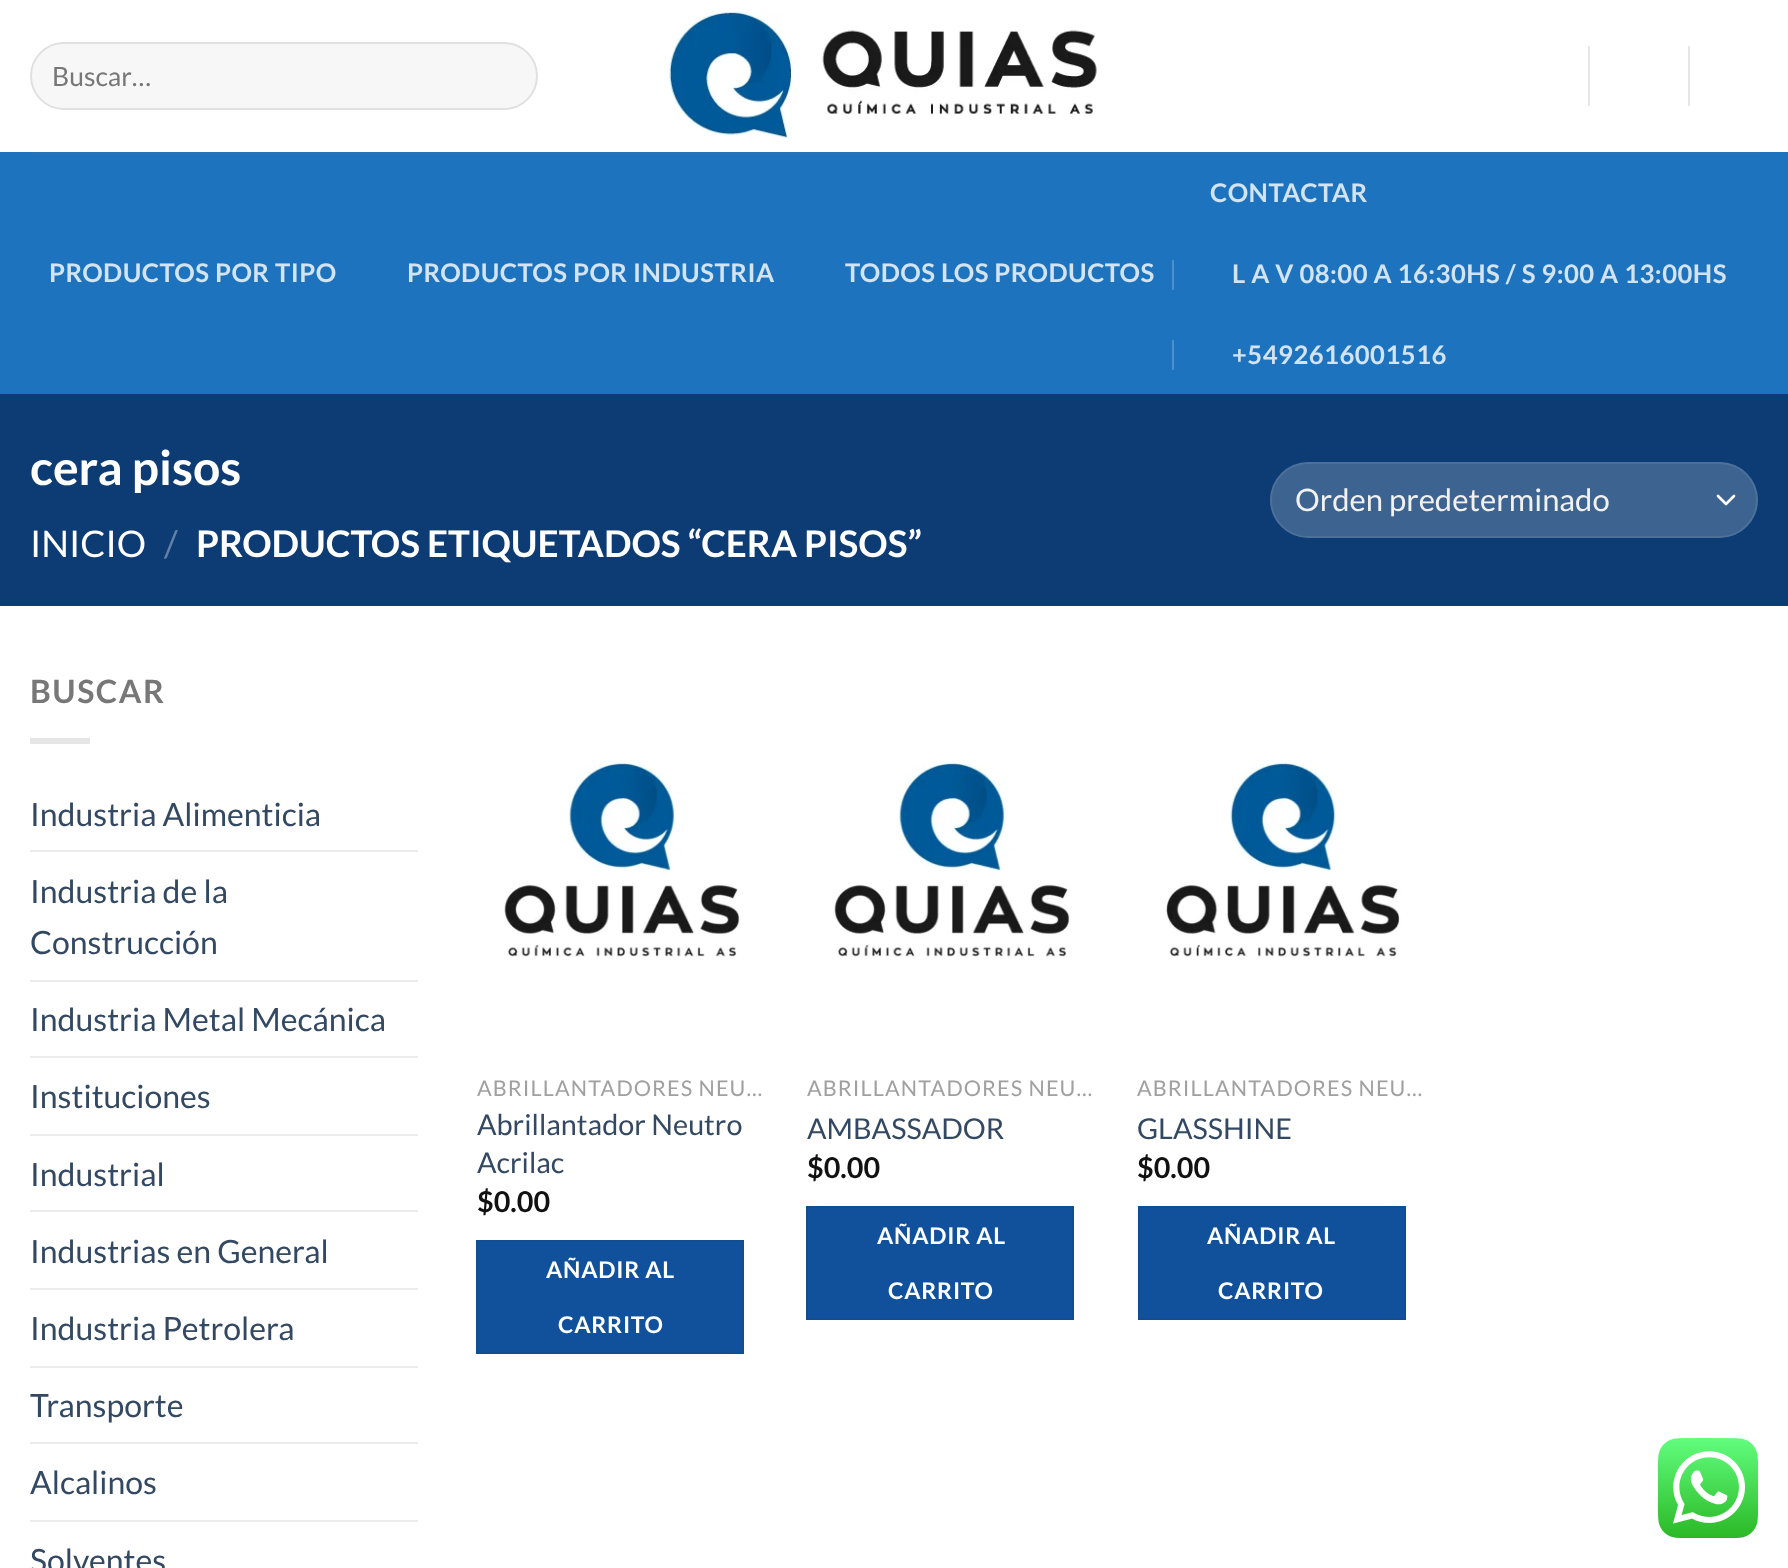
<svg xmlns="http://www.w3.org/2000/svg" width="1788" height="1568" viewBox="0 0 1788 1568">
  <style>
    .t1 { font: 26.5px Lato; fill: #777; }
    .t2 { font: bold 25.6px Lato; letter-spacing: 0.5px; fill: #d2e3f2; }
    .t3 { font: bold 48px Lato; fill: #fff; }
    .t4 { font: 36.75px Lato; fill: #fff; }
    .t5 { font: 36.75px Lato; fill: #6280a5; }
    .t6 { font: bold 36.75px Lato; fill: #fff; }
    .t7 { font: 31px Lato; fill: #f1f1f1; }
    .t8 { font: bold 32px Lato; letter-spacing: 1.5px; fill: #777; }
    .t9 { font: 32px Lato; fill: #334862; }
    .t10 { font: 21.6px Lato; letter-spacing: 1.1px; fill: #a0a0a0; }
    .t11 { font: 28.75px Lato; fill: #334862; }
    .t12 { font: bold 28.75px Lato; fill: #111; }
    .t13 { font: bold 23px Lato; letter-spacing: 0.75px; fill: #fff; }
  </style>
  <rect width="100%" height="100%" fill="#fff"/>
  <rect x="30" y="42" width="508" height="68" rx="34" fill="#f7f7f7"/>
  <rect x="31" y="43" width="506" height="66" rx="33" fill="none" stroke="#00000017" stroke-width="2"/>
  <text x="52" y="86" class="t1">Buscar…</text>
  <image x="669" y="11" width="428" height="131" href="images/1.png"/>
  <rect x="1588" y="46" width="2" height="60" fill="#e6e6e6"/>
  <rect x="1688" y="46" width="2" height="60" fill="#e6e6e6"/>
  <rect x="0" y="152" width="1788" height="242" fill="#1e73be"/>
  <rect x="30" y="152" width="1728" height="2" fill="#2773b7"/>
  <text x="49" y="282" class="t2">PRODUCTOS POR TIPO</text>
  <text x="407" y="282" class="t2">PRODUCTOS POR INDUSTRIA</text>
  <text x="845" y="282" class="t2">TODOS LOS PRODUCTOS</text>
  <text x="1210" y="202" class="t2">CONTACTAR</text>
  <rect x="1172" y="260" width="2" height="30" fill="#4b8fcb"/>
  <text x="1232" y="283" class="t2">L A V 08:00 A 16:30HS / S 9:00 A 13:00HS</text>
  <rect x="1172" y="340" width="2" height="30" fill="#4b8fcb"/>
  <text x="1232" y="364" class="t2">+5492616001516</text>
  <rect x="0" y="394" width="1788" height="212" fill="#0d3c75"/>
  <text x="30" y="485" class="t3">cera pisos</text>
  <text x="30" y="557" class="t4">INICIO</text>
  <text x="164" y="557" class="t5">/</text>
  <text x="196" y="557" class="t6">PRODUCTOS ETIQUETADOS “CERA PISOS”</text>
  <rect x="1270" y="462" width="488" height="76" rx="38" fill="#3d6391"/>
  <path d="M1718 496L1726 504L1734 496" fill="none" stroke="#fff" stroke-width="2.7" stroke-linecap="round" stroke-linejoin="round"/>
  <rect x="1271" y="463" width="486" height="74" rx="37" fill="none" stroke="#ffffff17" stroke-width="2"/>
  <text x="1295" y="511" class="t7">Orden predeterminado</text>
  <text x="30" y="703" class="t8">BUSCAR</text>
  <rect x="30" y="738" width="60" height="6" fill="#e6e6e6"/>
  <text x="30" y="826" class="t9">Industria Alimenticia</text>
  <rect x="30" y="850" width="388" height="2" fill="#ececec"/>
  <text x="30" y="903" class="t9">Industria de la</text>
  <text x="30" y="954" class="t9">Construcción</text>
  <rect x="30" y="980" width="388" height="2" fill="#ececec"/>
  <text x="30" y="1031" class="t9">Industria Metal Mecánica</text>
  <rect x="30" y="1056" width="388" height="2" fill="#ececec"/>
  <text x="30" y="1108" class="t9">Instituciones</text>
  <rect x="30" y="1134" width="388" height="2" fill="#ececec"/>
  <text x="30" y="1186" class="t9">Industrial</text>
  <rect x="30" y="1210" width="388" height="2" fill="#ececec"/>
  <text x="30" y="1263" class="t9">Industrias en General</text>
  <rect x="30" y="1288" width="388" height="2" fill="#ececec"/>
  <text x="30" y="1340" class="t9">Industria Petrolera</text>
  <rect x="30" y="1366" width="388" height="2" fill="#ececec"/>
  <text x="30" y="1417" class="t9">Transporte</text>
  <rect x="30" y="1442" width="388" height="2" fill="#ececec"/>
  <text x="30" y="1494" class="t9">Alcalinos</text>
  <rect x="30" y="1520" width="388" height="2" fill="#ececec"/>
  <text x="30" y="1572" class="t9">Solventes</text>
  <image x="504" y="759" width="237" height="198" href="images/2.png"/>
  <text x="477" y="1096" class="t10">ABRILLANTADORES NEU…</text>
  <text x="477" y="1135" class="t11">Abrillantador Neutro</text>
  <text x="477" y="1173" class="t11">Acrilac</text>
  <text x="477" y="1212" class="t12">$0.00</text>
  <rect x="477" y="1241" width="266" height="112" fill="#11519b" stroke="#104d93" stroke-width="2"/>
  <text x="546" y="1278" class="t13">AÑADIR AL</text>
  <text x="558" y="1333" class="t13">CARRITO</text>
  <image x="834" y="759" width="237" height="198" href="images/3.png"/>
  <text x="807" y="1096" class="t10">ABRILLANTADORES NEU…</text>
  <text x="807" y="1139" class="t11">AMBASSADOR</text>
  <text x="807" y="1178" class="t12">$0.00</text>
  <rect x="807" y="1207" width="266" height="112" fill="#11519b" stroke="#104d93" stroke-width="2"/>
  <text x="877" y="1244" class="t13">AÑADIR AL</text>
  <text x="888" y="1299" class="t13">CARRITO</text>
  <image x="1165" y="759" width="236" height="198" href="images/4.png"/>
  <text x="1137" y="1096" class="t10">ABRILLANTADORES NEU…</text>
  <text x="1137" y="1139" class="t11">GLASSHINE</text>
  <text x="1137" y="1178" class="t12">$0.00</text>
  <rect x="1139" y="1207" width="266" height="112" fill="#11519b" stroke="#104d93" stroke-width="2"/>
  <text x="1207" y="1244" class="t13">AÑADIR AL</text>
  <text x="1218" y="1299" class="t13">CARRITO</text>
  <image x="1658" y="1438" width="100" height="100" href="images/5.png"/>
</svg>
